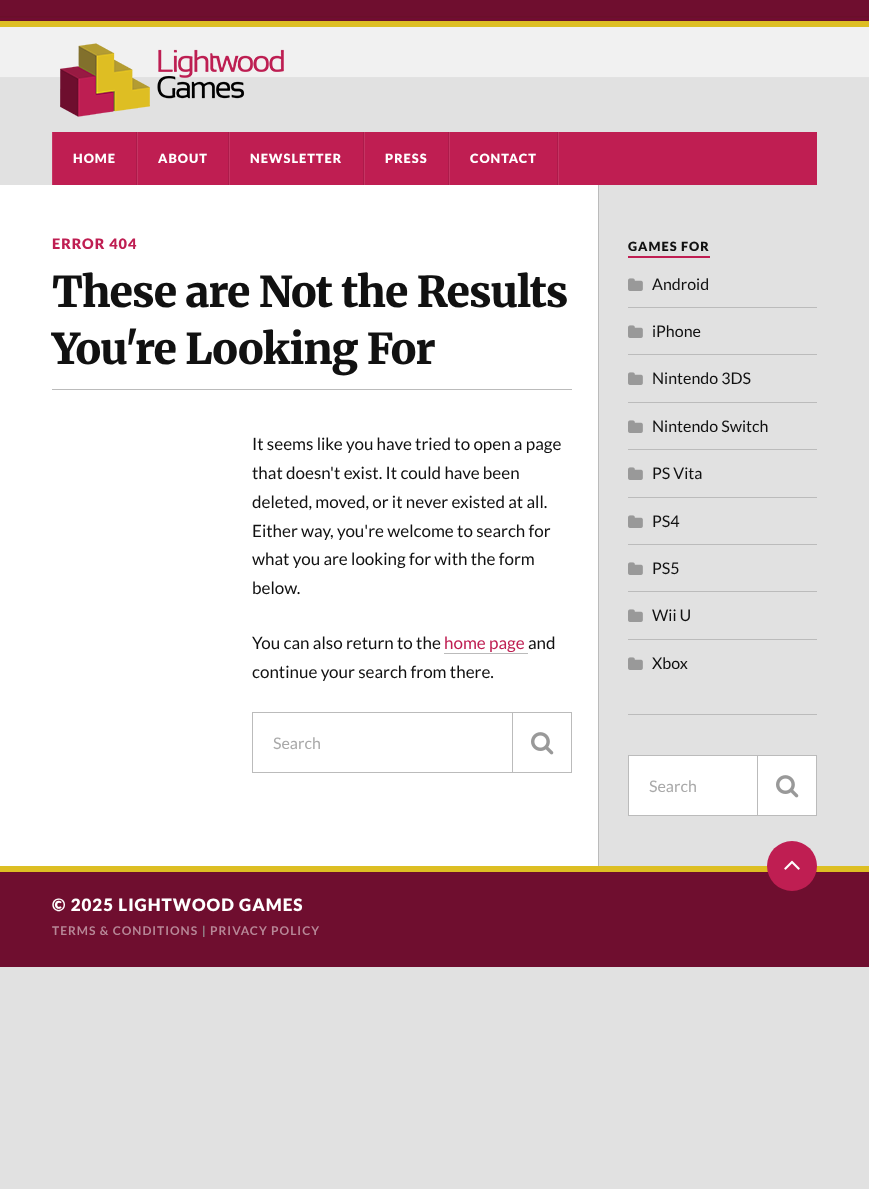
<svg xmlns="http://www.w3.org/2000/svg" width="869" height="1189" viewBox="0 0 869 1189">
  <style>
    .t1 { font: 900 12.75px Lato; letter-spacing: 1px; fill: #fff; }
    .t2 { font: 900 14.5px Lato; letter-spacing: 1px; fill: #bf1e52; }
    .t3 { font: 900 42.5px Merriweather; letter-spacing: -1px; fill: #111; }
    .t4 { font: 17px Lato; fill: #111; }
    .t5 { font: 17px Lato; fill: #bf1e52; }
    .t6 { font: 16px Lato; fill: #a9a9a9; }
    .t7 { font: 900 12.75px Lato; letter-spacing: 1px; fill: #111; }
    .t8 { font: 16px Lato; fill: #111; }
    .t9 { font: 900 17px Lato; letter-spacing: 1px; fill: #fff; }
    .t10 { font: bold 12px Lato; letter-spacing: 1px; fill: #b78797; }
    .t11 { font: bold 12px Lato; letter-spacing: 1px; fill: #999; }
  </style>
  <rect width="100%" height="100%" fill="#e1e1e1"/>
  <image x="0" y="0" width="869" height="185" href="images/1.png"/>
  <image x="60" y="43" width="224" height="74" href="images/2.png"/>
  <rect x="53" y="132" width="764" height="53" fill="#bf1e52"/>
  <rect x="136" y="132" width="1" height="53" fill="#ac1b4a"/>
  <rect x="52" y="132" width="1" height="53" fill="#c53563"/>
  <text x="73" y="163" class="t1">HOME</text>
  <rect x="228" y="132" width="1" height="53" fill="#ac1b4a"/>
  <rect x="137" y="132" width="1" height="53" fill="#c53563"/>
  <text x="158" y="163" class="t1">ABOUT</text>
  <rect x="363" y="132" width="1" height="53" fill="#ac1b4a"/>
  <rect x="229" y="132" width="1" height="53" fill="#c53563"/>
  <text x="250" y="163" class="t1">NEWSLETTER</text>
  <rect x="448" y="132" width="1" height="53" fill="#ac1b4a"/>
  <rect x="364" y="132" width="1" height="53" fill="#c53563"/>
  <text x="385" y="163" class="t1">PRESS</text>
  <rect x="557" y="132" width="1" height="53" fill="#ac1b4a"/>
  <rect x="449" y="132" width="1" height="53" fill="#c53563"/>
  <text x="470" y="163" class="t1">CONTACT</text>
  <rect x="558" y="132" width="1" height="53" fill="#c53563"/>
  <rect x="0" y="185" width="598" height="681" fill="#fff"/>
  <text x="52" y="249" class="t2">ERROR 404</text>
  <rect x="52" y="389" width="520" height="1" fill="#bbb"/>
  <text x="52" y="307" class="t3">These are Not the Results</text>
  <text x="52" y="364" class="t3">You're Looking For</text>
  <text x="252" y="450" class="t4">It seems like you have tried to open a page</text>
  <text x="252" y="479" class="t4">that doesn't exist. It could have been</text>
  <text x="252" y="508" class="t4">deleted, moved, or it never existed at all.</text>
  <text x="252" y="537" class="t4">Either way, you're welcome to search for</text>
  <text x="252" y="565" class="t4">what you are looking for with the form</text>
  <text x="252" y="594" class="t4">below.</text>
  <text x="252" y="649" class="t4">You can also return to the</text>
  <text x="444" y="649" class="t5">home page</text>
  <rect x="444" y="653" width="84" height="1" fill="#bbb"/>
  <text x="528" y="649" class="t4">and</text>
  <text x="252" y="678" class="t4">continue your search from there.</text>
  <rect x="252.5" y="712.5" width="319" height="60" fill="none" stroke="#bbb"/>
  <text x="273" y="749" class="t6">Search</text>
  <rect x="512" y="712" width="1" height="61" fill="#bbb"/>
  <image x="531" y="732" width="23" height="23" href="images/3.png"/>
  <rect x="598" y="185" width="1" height="681" fill="#bbb"/>
  <rect x="628" y="256" width="82" height="2" fill="#bf1e52"/>
  <text x="628" y="251" class="t7">GAMES FOR</text>
  <rect x="628" y="307" width="189" height="1" fill="#bbb"/>
  <image x="628" y="278" width="15" height="13" href="images/4.png"/>
  <text x="652" y="290" class="t8">Android</text>
  <rect x="628" y="354" width="189" height="1" fill="#bbb"/>
  <image x="628" y="325" width="15" height="13" href="images/4.png"/>
  <text x="652" y="337" class="t8">iPhone</text>
  <rect x="628" y="402" width="189" height="1" fill="#bbb"/>
  <image x="628" y="372" width="15" height="13" href="images/4.png"/>
  <text x="652" y="384" class="t8">Nintendo 3DS</text>
  <rect x="628" y="449" width="189" height="1" fill="#bbb"/>
  <image x="628" y="420" width="15" height="13" href="images/4.png"/>
  <text x="652" y="432" class="t8">Nintendo Switch</text>
  <rect x="628" y="497" width="189" height="1" fill="#bbb"/>
  <image x="628" y="467" width="15" height="13" href="images/4.png"/>
  <text x="652" y="479" class="t8">PS Vita</text>
  <rect x="628" y="544" width="189" height="1" fill="#bbb"/>
  <image x="628" y="515" width="15" height="13" href="images/4.png"/>
  <text x="652" y="527" class="t8">PS4</text>
  <rect x="628" y="591" width="189" height="1" fill="#bbb"/>
  <image x="628" y="562" width="15" height="13" href="images/4.png"/>
  <text x="652" y="574" class="t8">PS5</text>
  <rect x="628" y="639" width="189" height="1" fill="#bbb"/>
  <image x="628" y="609" width="15" height="13" href="images/4.png"/>
  <text x="652" y="621" class="t8">Wii U</text>
  <image x="628" y="657" width="15" height="13" href="images/4.png"/>
  <text x="652" y="669" class="t8">Xbox</text>
  <rect x="628" y="714" width="189" height="1" fill="#bbb"/>
  <rect x="628.5" y="755.5" width="188" height="60" fill="#fff" stroke="#bbb"/>
  <text x="649" y="792" class="t6">Search</text>
  <rect x="757" y="755" width="1" height="61" fill="#bbb"/>
  <image x="776" y="775" width="23" height="23" href="images/3.png"/>
  <rect x="0" y="876" width="869" height="91" fill="#6f0e2f"/>
  <image x="0" y="866" width="869" height="10" href="images/5.png"/>
  <circle cx="792" cy="866" r="25" fill="#bf1e52"/>
  <image x="784" y="860" width="16" height="10" href="images/6.png"/>
  <text x="52" y="911" class="t9">© 2025 LIGHTWOOD GAMES</text>
  <text x="52" y="935" class="t10">TERMS &amp; CONDITIONS</text>
  <text x="202" y="935" class="t11">|</text>
  <text x="210" y="935" class="t10">PRIVACY POLICY</text>
</svg>
